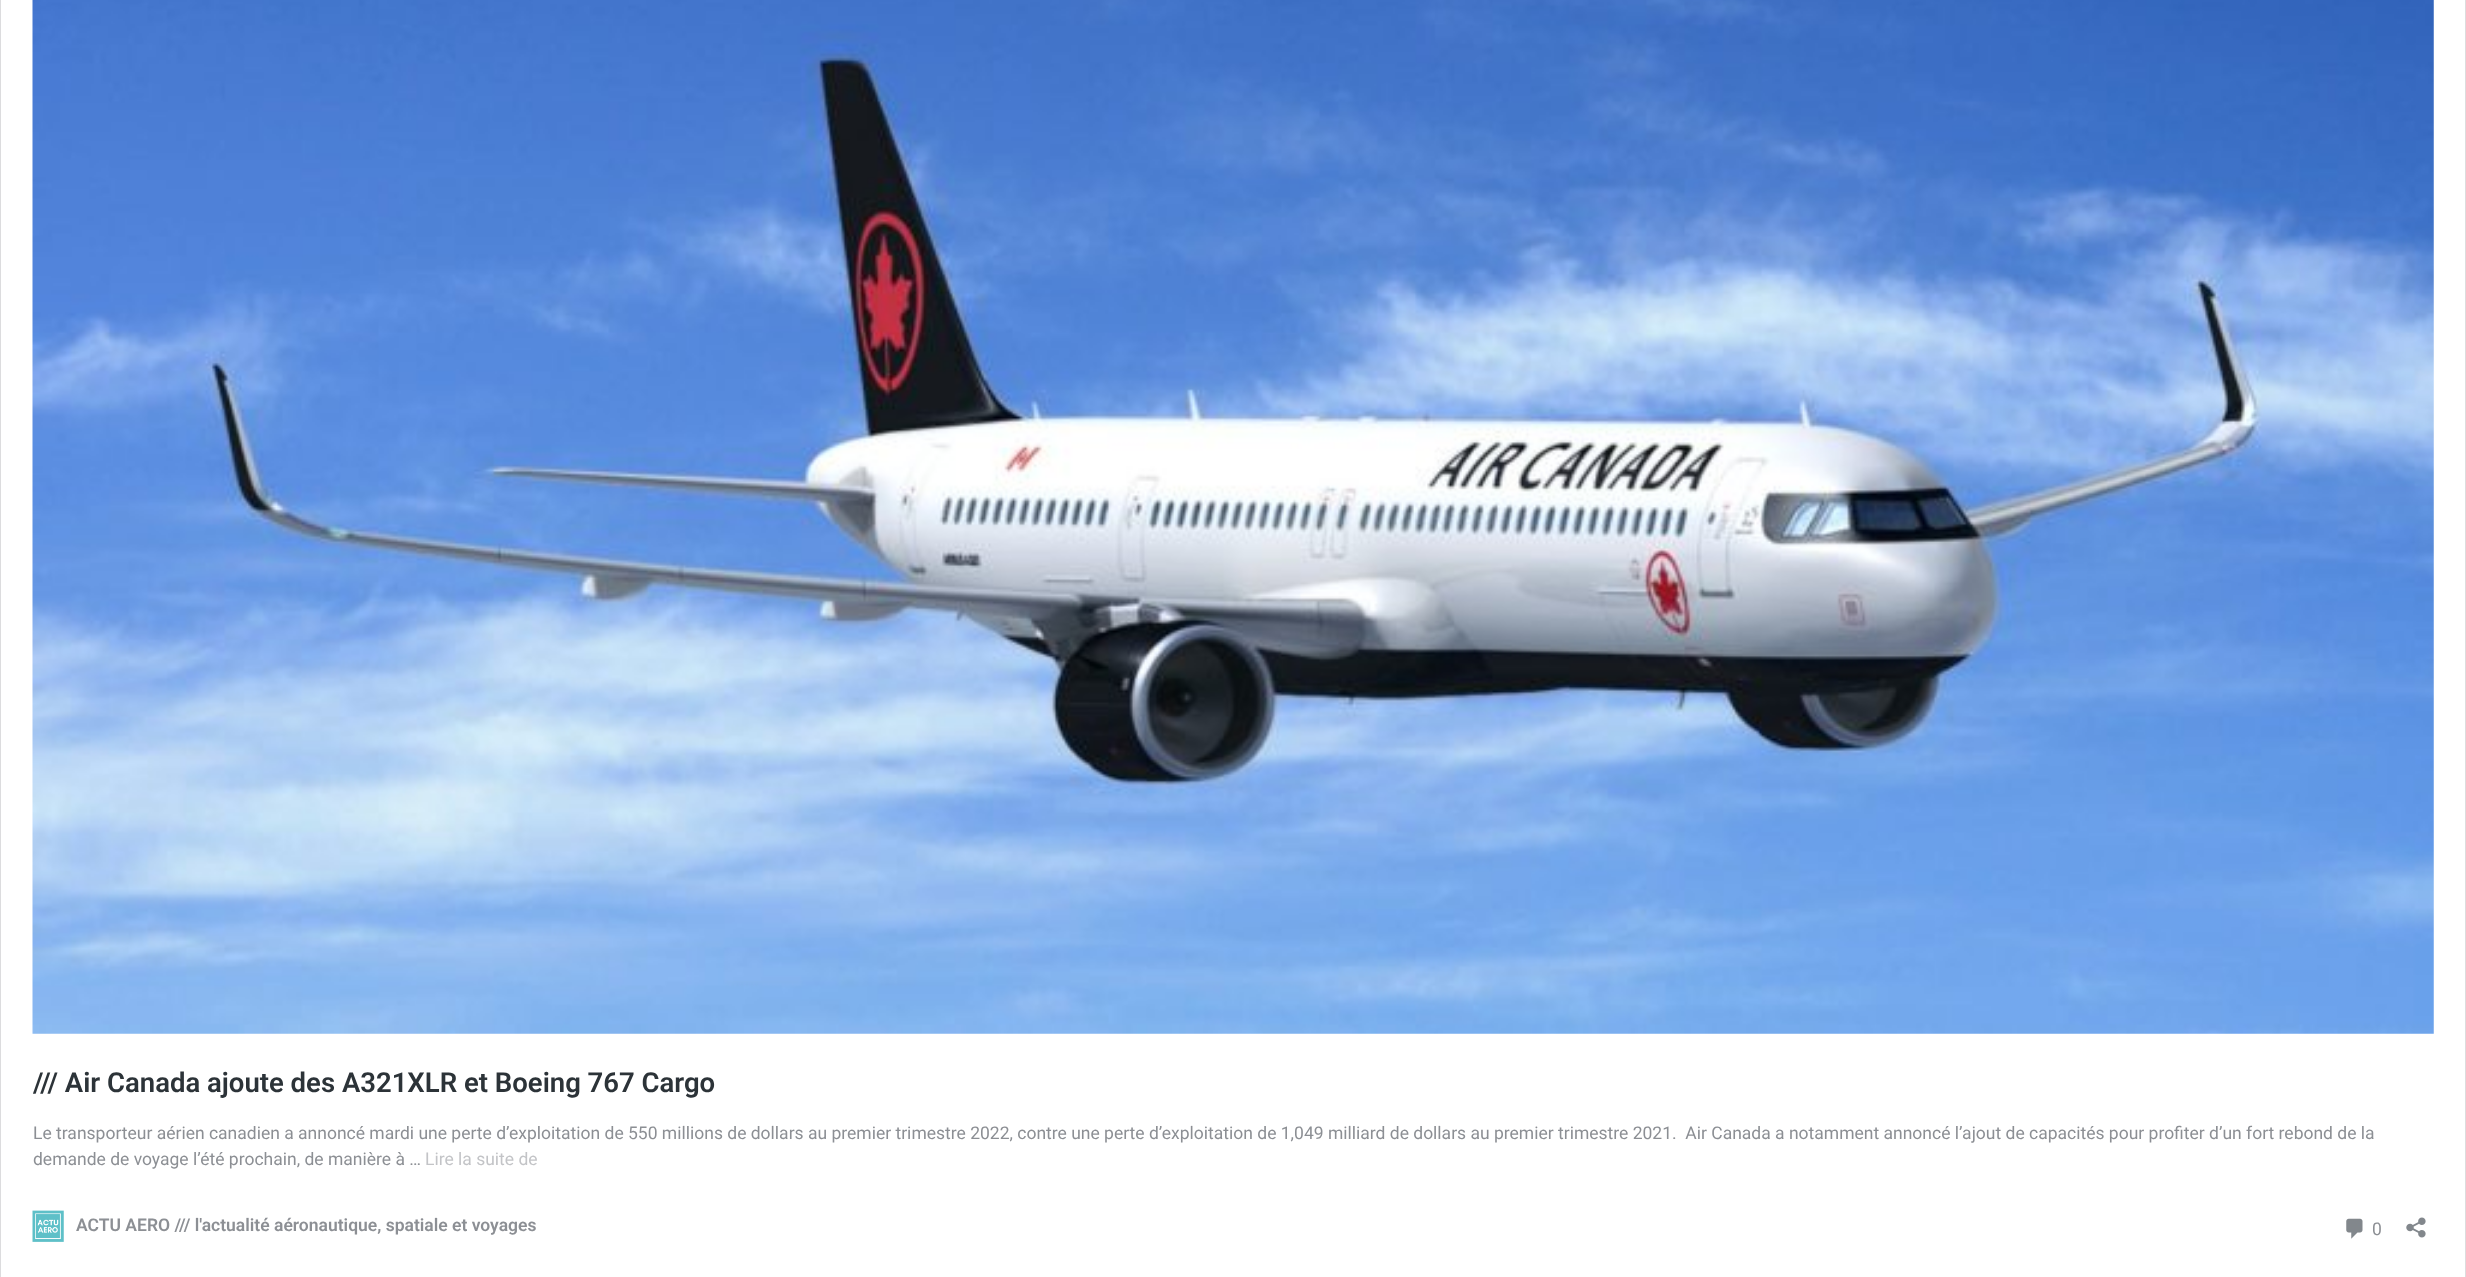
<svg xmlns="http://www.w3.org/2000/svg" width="2466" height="1277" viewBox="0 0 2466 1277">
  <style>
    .t1 { font: 600 27.5px Roboto; fill: #2c3338; }
    .t2 { font: 17.5px Roboto; fill: #8c8f94; }
    .t3 { font: 17.5px Roboto; fill: #c3c4c7; }
    .t4 { font: 600 17.5px Roboto; fill: #8c8f94; }
  </style>
  <rect width="100%" height="100%" fill="#fff"/>
  <rect x="0.5" y="-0.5" width="2465" height="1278" fill="none" stroke="#dcdcde"/>
  <image x="32" y="0" width="2402" height="1034" href="images/1.png"/>
  <text x="33" y="1092" class="t1">/// Air Canada ajoute des A321XLR et Boeing 767 Cargo</text>
  <text x="33" y="1139" class="t2" xml:space="preserve">Le transporteur aérien canadien a annoncé mardi une perte d’exploitation de 550 millions de dollars au premier trimestre 2022, contre une perte d’exploitation de 1,049 milliard de dollars au premier trimestre 2021.  Air Canada a notamment annoncé l’ajout de capacités pour profiter d’un fort rebond de la</text>
  <text x="33" y="1165" class="t2">demande de voyage l’été prochain, de manière à …</text>
  <text x="425" y="1165" class="t3">Lire la suite de</text>
  <image x="32" y="1210" width="32" height="32" href="images/2.png"/>
  <text x="76" y="1231" class="t4">ACTU AERO /// l'actualité aéronautique, spatiale et voyages</text>
  <image x="2346" y="1218" width="17" height="21" href="images/3.png"/>
  <text x="2372" y="1235" class="t2">0</text>
  <image x="2406" y="1217" width="20" height="21" href="images/4.png"/>
</svg>
